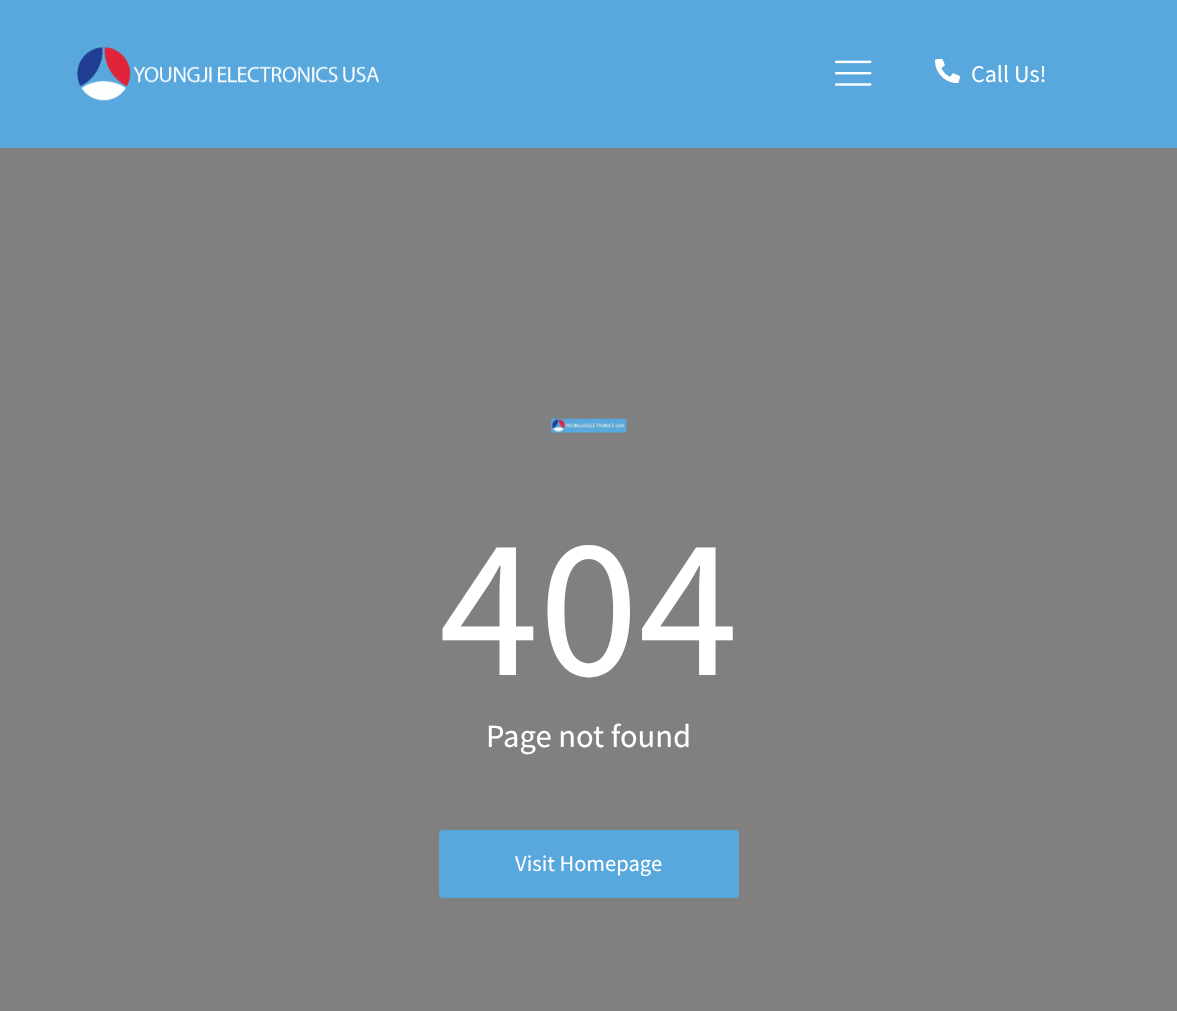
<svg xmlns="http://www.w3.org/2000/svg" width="1177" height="1011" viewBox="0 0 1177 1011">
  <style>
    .t1 { font: 500 24px Assistant; fill: #fff; }
    .t2 { font: 500 200px Assistant; fill: #fff; }
    .t3 { font: 500 32.5px Assistant; fill: #fff; }
    .t4 { font: 500 22.5px Assistant; fill: #fff; }
  </style>
  <rect width="100%" height="100%" fill="#808080"/>
  <rect x="0" y="0" width="1177" height="148" fill="#58a8dd"/>
  <image x="77" y="47" width="302" height="54" href="images/1.png"/>
  <image x="835" y="60" width="37" height="26" href="images/2.png"/>
  <image x="935" y="59" width="25" height="25" href="images/3.png"/>
  <text x="971" y="82" class="t1">Call Us!</text>
  <image x="551" y="418" width="76" height="15" href="images/4.png"/>
  <text x="439" y="675" class="t2">404</text>
  <text x="486" y="747" class="t3">Page not found</text>
  <rect x="439" y="830" width="300" height="68" rx="4" fill="#58a8dd"/>
  <text x="515" y="871" class="t4">Visit Homepage</text>
</svg>
